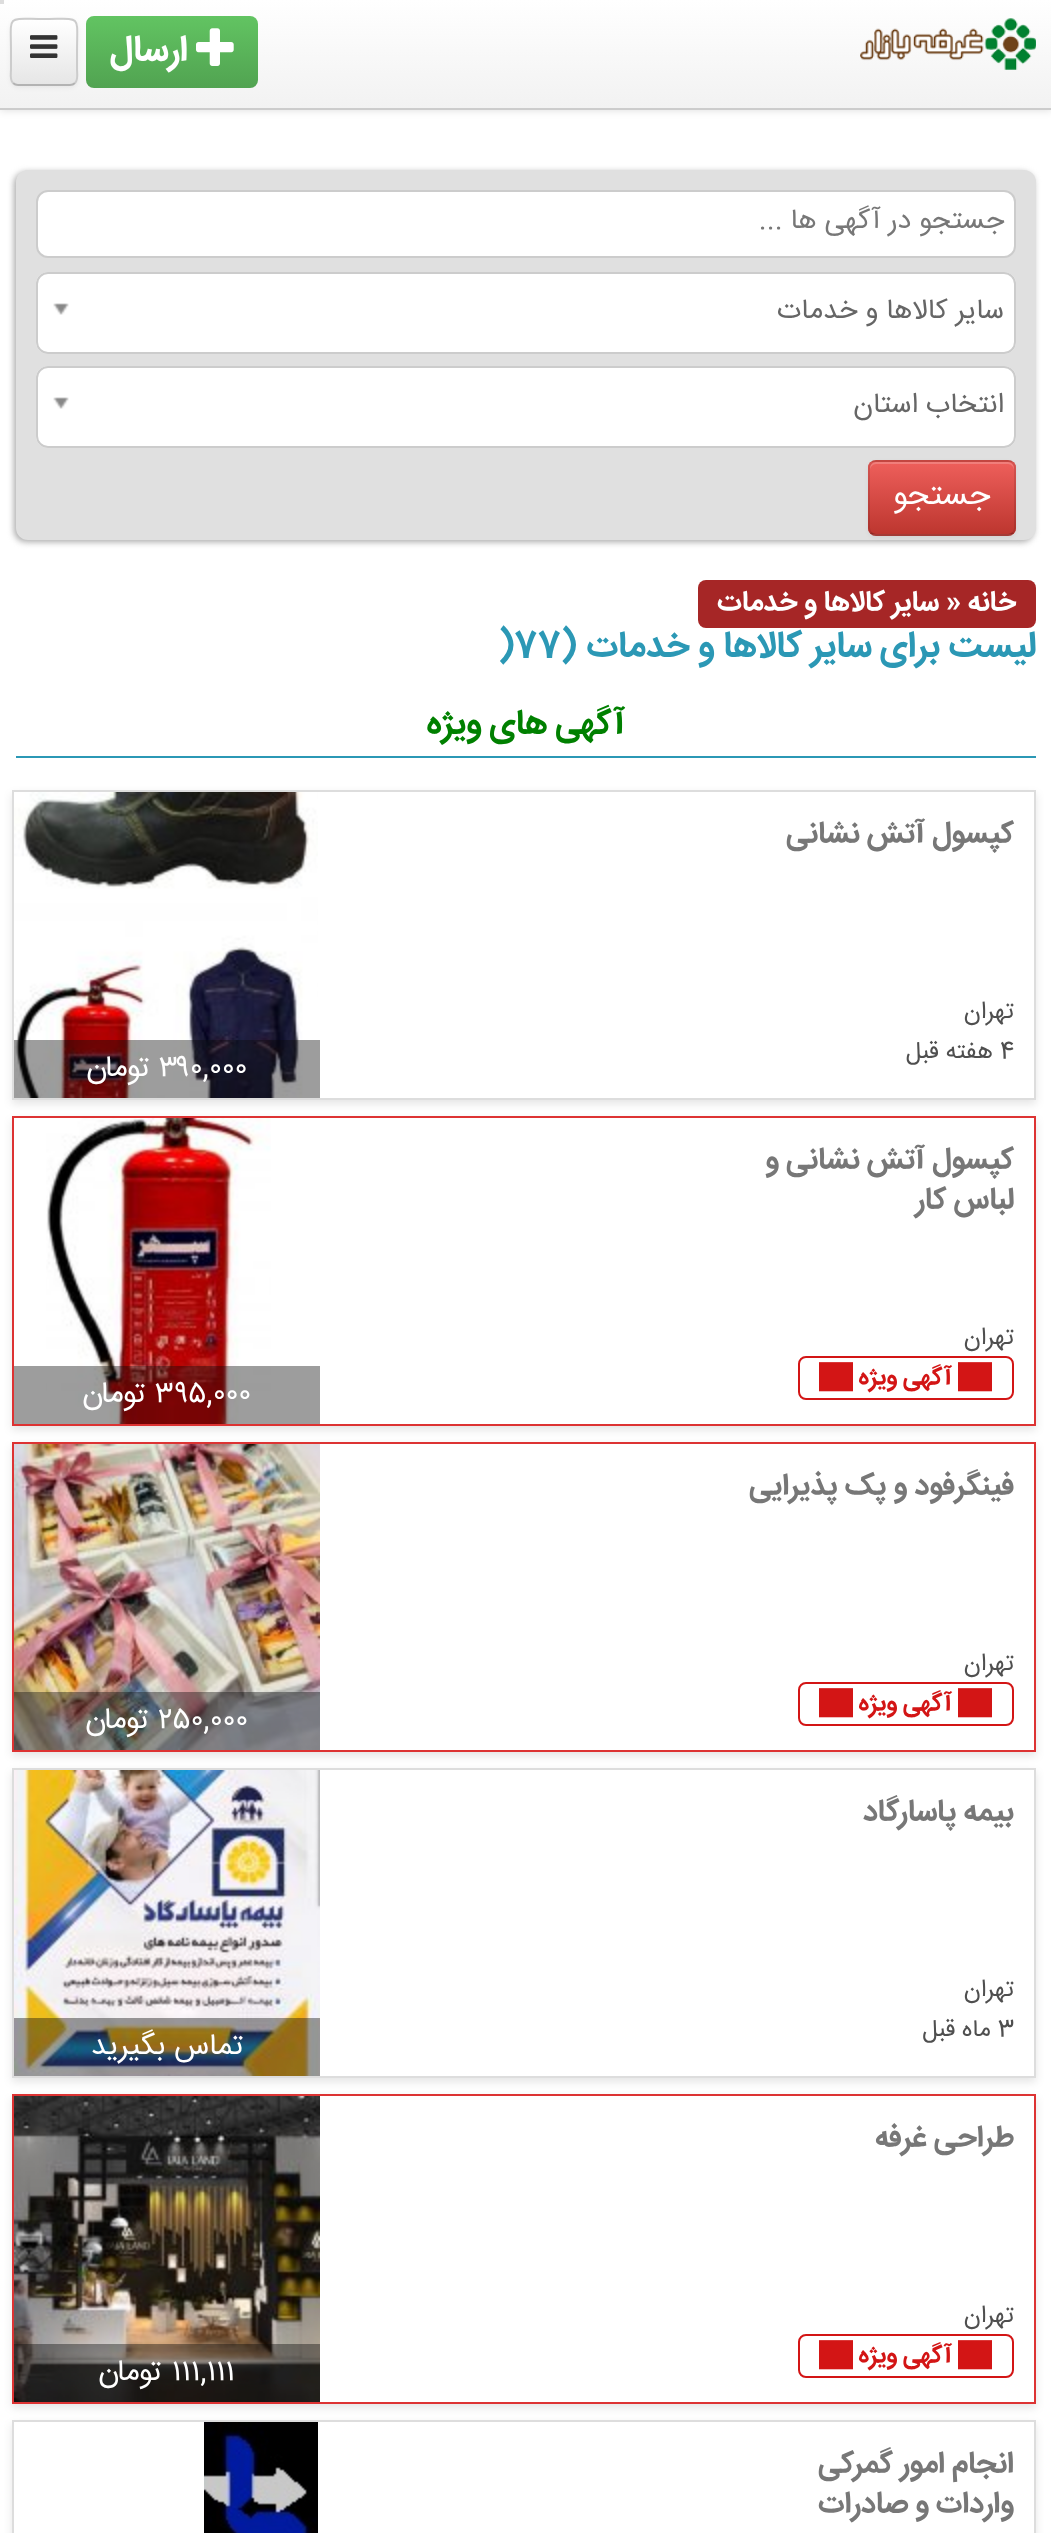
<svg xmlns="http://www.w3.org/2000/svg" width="1051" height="2533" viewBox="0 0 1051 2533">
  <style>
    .t1 { font: bold 36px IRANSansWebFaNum; direction: rtl; fill: #fff; }
    .t2 { font: 28px IRANSansWebFaNum; direction: rtl; fill: #777; }
    .t3 { font: 28px IRANSansWebFaNum; direction: rtl; fill: #666; }
    .t4 { font: 32px IRANSansWebFaNum; direction: rtl; fill: #fff; }
    .t5 { font: bold 28px IRANSansWebFaNum; direction: rtl; fill: #fff; }
    .t6 { font: bold 28px IRANSansWebFaNum; fill: #fff; }
    .t7 { font: bold 36px IRANSansWebFaNum; direction: rtl; fill: #2b98b5; }
    .t8 { font: bold 36px IRANSansWebFaNum; fill: #2b98b5; }
    .t9 { font: bold 34px IRANSansWebFaNum; direction: rtl; fill: #008000; }
    .t10 { font: bold 30px IRANSansWebFaNum; direction: rtl; fill: #777; }
    .t11 { font: 24px IRANSansWebFaNum; direction: rtl; fill: #4f4f4f; }
    .t12 { font: 24px IRANSansWebFaNum; fill: #4f4f4f; }
    .t13 { font: 30px IRANSansWebFaNum; fill: #fff; }
    .t14 { font: 30px IRANSansWebFaNum; direction: rtl; fill: #fff; }
    .t15 { font: bold 24px Liberation Serif; direction: rtl; fill: #d31515; }
    .t16 { font: bold 24px IRANSansWebFaNum; direction: rtl; fill: #d31515; }
  </style>
  <defs>
    <linearGradient id="g1" gradientUnits="userSpaceOnUse" x1="526" y1="0" x2="526" y2="108"><stop offset="0" stop-color="#fff"/><stop offset="1" stop-color="#f2f2f2"/></linearGradient>
    <linearGradient id="g2" gradientUnits="userSpaceOnUse" x1="172" y1="16" x2="172" y2="88"><stop offset="0" stop-color="#62c462"/><stop offset="1" stop-color="#51a351"/></linearGradient>
    <clipPath id="clip1"><rect x="10" y="18" width="68" height="68" rx="8"/></clipPath>
    <linearGradient id="g3" gradientUnits="userSpaceOnUse" x1="44" y1="20" x2="44" y2="84"><stop offset="0" stop-color="#fff"/><stop offset="1" stop-color="#e6e6e6"/></linearGradient>
    <clipPath id="clip2"><rect x="868" y="460" width="148" height="76" rx="8"/></clipPath>
    <linearGradient id="g4" gradientUnits="userSpaceOnUse" x1="942" y1="462" x2="942" y2="534"><stop offset="0" stop-color="#ee5f5b"/><stop offset="1" stop-color="#bd362f"/></linearGradient>
    <clipPath id="clip3"><path d="M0 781H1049V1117H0ZM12 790H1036V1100H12Z" clip-rule="evenodd"/></clipPath>
    <clipPath id="clip4"><path d="M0 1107H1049V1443H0ZM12 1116H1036V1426H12Z" clip-rule="evenodd"/></clipPath>
    <clipPath id="clip5"><path d="M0 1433H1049V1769H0ZM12 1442H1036V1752H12Z" clip-rule="evenodd"/></clipPath>
    <clipPath id="clip6"><path d="M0 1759H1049V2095H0ZM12 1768H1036V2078H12Z" clip-rule="evenodd"/></clipPath>
    <clipPath id="clip7"><path d="M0 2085H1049V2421H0ZM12 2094H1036V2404H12Z" clip-rule="evenodd"/></clipPath>
    <clipPath id="clip8"><path d="M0 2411H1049V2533H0ZM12 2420H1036V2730H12Z" clip-rule="evenodd"/></clipPath>
  </defs>
  <rect width="100%" height="100%" fill="#fff"/>
  <rect x="0" y="0" width="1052" height="110" fill="#00000024" filter="blur(4px)"/>
  <rect x="0" y="0" width="1051" height="108" fill="url(#g1)"/>
  <rect x="0" y="0" width="4" height="4" fill="#ddd"/>
  <rect x="0" y="108" width="1051" height="2" fill="#ccc"/>
  <image x="860" y="18" width="176" height="52" href="images/1.png"/>
  <rect x="86" y="16" width="172" height="72" rx="8" fill="url(#g2)"/>
  <image x="196" y="28" width="38" height="38" href="images/2.png"/>
  <text x="188" y="60" class="t1">ارسال</text>
  <rect x="10" y="20" width="68" height="68" rx="8" fill="#0000000d" filter="blur(2px)"/>
  <rect x="10" y="18" width="68" height="68" rx="8" fill="#f5f5f5"/>
  <g clip-path="url(#clip1)">
    <rect x="10" y="20" width="68" height="64" fill="url(#g3)"/>
  </g>
  <path d="M75 83C73.5 84.5 72 85 70 85H18C16 85 14.5 84.5 13 83" fill="none" stroke="#b3b3b3" stroke-width="2"/>
  <path d="M13 83C9.5 79.5 11 73 11 69.5V52C11 13.5 5.5 19 44 19C82.5 19 77 13.5 77 52V69.5C77 73 78.5 79.5 75 83" fill="none" stroke="#ccc" stroke-width="2"/>
  <image x="30" y="35" width="28" height="23" href="images/3.png"/>
  <rect x="14" y="172" width="1020" height="370" rx="12" fill="#aaa" filter="blur(3px)"/>
  <rect x="16" y="170" width="1020" height="370" rx="12" fill="#e0e0e0"/>
  <rect x="37" y="191" width="978" height="66" rx="11" fill="#fff" stroke="#ccc" stroke-width="2"/>
  <text x="1004" y="228" class="t2">جستجو در آگهی ها ...</text>
  <rect x="36" y="272" width="980" height="82" rx="12" fill="#fff"/>
  <image x="53" y="303" width="16" height="12" href="images/4.png"/>
  <rect x="37" y="273" width="978" height="80" rx="11" fill="none" stroke="#ccc" stroke-width="2"/>
  <text x="1004" y="318" class="t3">سایر کالاها و خدمات</text>
  <rect x="36" y="366" width="980" height="82" rx="12" fill="#fff"/>
  <image x="53" y="397" width="16" height="12" href="images/4.png"/>
  <rect x="37" y="367" width="978" height="80" rx="11" fill="none" stroke="#ccc" stroke-width="2"/>
  <text x="1004" y="412" class="t3">انتخاب استان</text>
  <rect x="868" y="462" width="148" height="76" rx="8" fill="#0000000d" filter="blur(2px)"/>
  <rect x="868" y="460" width="148" height="76" rx="8" fill="#da4f49"/>
  <g clip-path="url(#clip2)">
    <rect x="868" y="462" width="148" height="72" fill="url(#g4)"/>
  </g>
  <path d="M876 464H1008C1011 464 1014 467 1014 470V468C1014 465 1011 462 1008 462H876C873 462 870 465 870 468V470C870 467 873 464 876 464Z" fill="#ffffff33"/>
  <path d="M1013 533C1011.5 534.5 1010 535 1008 535H876C874 535 872.5 534.5 871 533" fill="none" stroke="#00000040" stroke-width="2"/>
  <path d="M871 533C869.5 531.5 869 530 869 528V468C869 466 869.5 464.5 871 463C872.5 461.5 874 461 876 461H1008C1010 461 1011.5 461.5 1013 463C1014.5 464.5 1015 466 1015 468V528C1015 530 1014.5 531.5 1013 533" fill="none" stroke="#0000001a" stroke-width="2"/>
  <text x="990" y="504" class="t4">جستجو</text>
  <rect x="698" y="580" width="338" height="48" rx="8" fill="#a62626"/>
  <text x="1016" y="610" class="t5">خانه</text>
  <text x="946" y="610" class="t6">»</text>
  <text x="939" y="610" class="t5">سایر کالاها و خدمات</text>
  <text x="1036" y="656" class="t7">لیست برای سایر کالاها و خدمات (</text>
  <text x="514" y="656" class="t8">77</text>
  <text x="498" y="656" class="t8">)</text>
  <rect x="16" y="756" width="1020" height="2" fill="#2b98b5"/>
  <text x="625" y="733" class="t9">آگهی های ویژه</text>
  <g clip-path="url(#clip3)">
    <rect x="12" y="794" width="1024" height="310" fill="#0000001a" filter="blur(4px)"/>
  </g>
  <rect x="13" y="791" width="1022" height="308" fill="none" stroke="#ddd" stroke-width="2"/>
  <text x="1014" y="842" class="t10">کپسول آتش نشانی</text>
  <text x="1014" y="1018" class="t11">تهران</text>
  <text x="1000" y="1058" class="t12">4</text>
  <text x="993" y="1058" class="t11">هفته قبل</text>
  <image x="14" y="792" width="304" height="306" href="images/5.png"/>
  <rect x="14" y="1040" width="306" height="58" fill="#0a0a0a66"/>
  <text x="159" y="1076" class="t13">۳۹۰,۰۰۰</text>
  <text x="151" y="1076" class="t14">تومان</text>
  <g clip-path="url(#clip4)">
    <rect x="12" y="1120" width="1024" height="310" fill="#0000001a" filter="blur(4px)"/>
  </g>
  <rect x="13" y="1117" width="1022" height="308" fill="none" stroke="#d33" stroke-width="2"/>
  <text x="1014" y="1168" class="t10">کپسول آتش نشانی و</text>
  <text x="1014" y="1208" class="t10">لباس کار</text>
  <text x="1014" y="1344" class="t11">تهران</text>
  <rect x="799" y="1357" width="214" height="42" rx="7" fill="none" stroke="#d31515" stroke-width="2"/>
  <text x="992" y="1384" class="t15">██</text>
  <text x="952" y="1384" class="t16">آگهی ویژه</text>
  <text x="853" y="1384" class="t15">██</text>
  <image x="46" y="1118" width="225" height="306" href="images/6.png"/>
  <rect x="14" y="1366" width="306" height="58" fill="#0a0a0a66"/>
  <text x="155" y="1402" class="t13">۳۹۵,۰۰۰</text>
  <text x="147" y="1402" class="t14">تومان</text>
  <g clip-path="url(#clip5)">
    <rect x="12" y="1446" width="1024" height="310" fill="#0000001a" filter="blur(4px)"/>
  </g>
  <rect x="13" y="1443" width="1022" height="308" fill="none" stroke="#d33" stroke-width="2"/>
  <text x="1014" y="1494" class="t10">فینگرفود و پک پذیرایی</text>
  <text x="1014" y="1670" class="t11">تهران</text>
  <rect x="799" y="1683" width="214" height="42" rx="7" fill="none" stroke="#d31515" stroke-width="2"/>
  <text x="992" y="1710" class="t15">██</text>
  <text x="952" y="1710" class="t16">آگهی ویژه</text>
  <text x="853" y="1710" class="t15">██</text>
  <image x="14" y="1444" width="306" height="306" href="images/7.png"/>
  <rect x="14" y="1692" width="306" height="58" fill="#0a0a0a66"/>
  <text x="158" y="1728" class="t13">۲۵۰,۰۰۰</text>
  <text x="150" y="1728" class="t14">تومان</text>
  <g clip-path="url(#clip6)">
    <rect x="12" y="1772" width="1024" height="310" fill="#0000001a" filter="blur(4px)"/>
  </g>
  <rect x="13" y="1769" width="1022" height="308" fill="none" stroke="#ddd" stroke-width="2"/>
  <text x="1014" y="1820" class="t10">بیمه پاسارگاد</text>
  <text x="1014" y="1996" class="t11">تهران</text>
  <text x="998" y="2036" class="t12">3</text>
  <text x="991" y="2036" class="t11">ماه قبل</text>
  <image x="14" y="1770" width="306" height="306" href="images/8.png"/>
  <rect x="14" y="2018" width="306" height="58" fill="#0a0a0a66"/>
  <text x="243" y="2054" class="t14">تماس بگیرید</text>
  <g clip-path="url(#clip7)">
    <rect x="12" y="2098" width="1024" height="310" fill="#0000001a" filter="blur(4px)"/>
  </g>
  <rect x="13" y="2095" width="1022" height="308" fill="none" stroke="#d33" stroke-width="2"/>
  <text x="1014" y="2146" class="t10">طراحی غرفه</text>
  <text x="1014" y="2322" class="t11">تهران</text>
  <rect x="799" y="2335" width="214" height="42" rx="7" fill="none" stroke="#d31515" stroke-width="2"/>
  <text x="992" y="2362" class="t15">██</text>
  <text x="952" y="2362" class="t16">آگهی ویژه</text>
  <text x="853" y="2362" class="t15">██</text>
  <image x="14" y="2096" width="306" height="306" href="images/9.png"/>
  <rect x="14" y="2344" width="306" height="58" fill="#0a0a0a66"/>
  <text x="172" y="2380" class="t13">۱۱۱,۱۱۱</text>
  <text x="163" y="2380" class="t14">تومان</text>
  <g clip-path="url(#clip8)">
    <rect x="12" y="2424" width="1024" height="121" fill="#0000001a" filter="blur(4px)"/>
  </g>
  <rect x="13" y="2421" width="1022" height="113" fill="none" stroke="#ddd" stroke-width="2"/>
  <text x="1014" y="2472" class="t10">انجام امور گمرکی</text>
  <text x="1014" y="2512" class="t10">واردات و صادرات</text>
  <image x="204" y="2422" width="114" height="111" href="images/10.png"/>
</svg>
